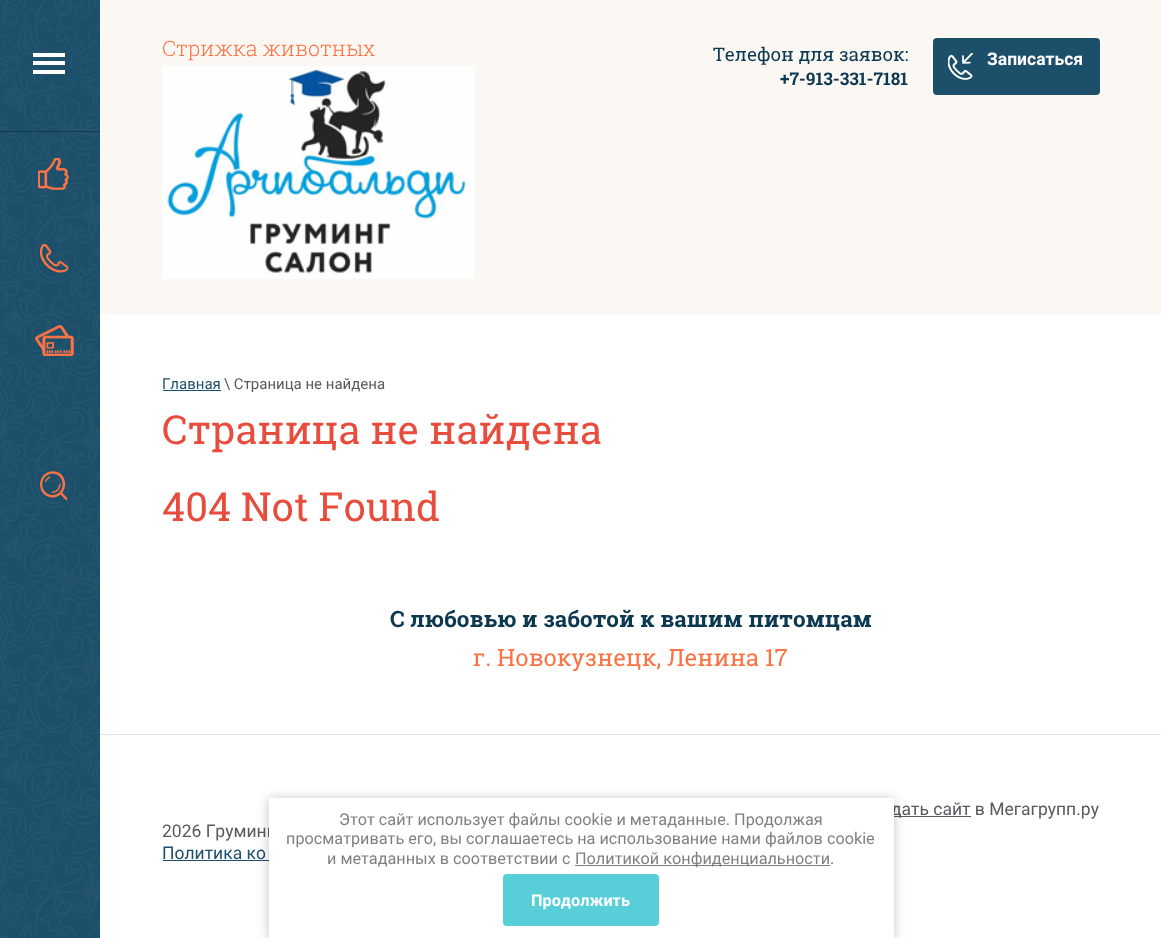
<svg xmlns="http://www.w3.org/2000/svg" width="1161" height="938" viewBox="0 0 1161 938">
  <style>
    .t1 { font: 300 21.25px Roboto Slab; fill: #fb7344; }
    .t2 { font: 18.75px Roboto Slab; fill: #0c3950; }
    .t3 { font: bold 17.5px Roboto Slab; fill: #0c3950; }
    .t4 { font: bold 17.5px Roboto; fill: #fff; }
    .t5 { font: 15px Roboto; fill: #1c4f69; }
    .t6 { font: 15px Roboto; fill: #555a5e; }
    .t7 { font: 40px Roboto Slab; fill: #e84c3d; }
    .t8 { font: bold 22.5px Roboto Slab; fill: #0c3950; }
    .t9 { font: 23.75px Roboto Slab; fill: #fb7344; }
    .t10 { font: 17.5px Roboto; fill: #555a5e; }
    .t11 { font: 17.5px Roboto; fill: #1c4f69; }
    .t12 { font: 16.25px Roboto; fill: #808080; }
    .t13 { font: bold 16.25px Roboto; fill: #fff; }
  </style>
  <rect width="100%" height="100%" fill="#fff"/>
  <rect x="0" y="0" width="100" height="938" fill="#1c4f69"/>
  <image x="0" y="131" width="100" height="807" href="images/1.png"/>
  <image x="0" y="0" width="100" height="131" href="images/2.png"/>
  <rect x="33" y="70" width="32" height="4" fill="#fff"/>
  <rect x="33" y="53" width="32" height="4" fill="#fff"/>
  <rect x="33" y="61" width="32" height="4" fill="#fff"/>
  <rect x="0" y="131" width="100" height="1" fill="#0000004d"/>
  <image x="38" y="158" width="31" height="32" href="images/3.png"/>
  <image x="40" y="244" width="29" height="29" href="images/4.png"/>
  <image x="35" y="325" width="39" height="31" href="images/5.png"/>
  <image x="40" y="471" width="28" height="29" href="images/6.png"/>
  <rect x="100" y="0" width="1061" height="314" fill="#fbf8f4"/>
  <text x="162" y="56" class="t1">Стрижка животных</text>
  <image x="162" y="66" width="313" height="213" href="images/7.png"/>
  <text x="713" y="61" class="t2">Телефон для заявок:</text>
  <text x="780" y="85" class="t3">+7-913-331-7181</text>
  <rect x="933" y="38" width="167" height="57" rx="4" fill="#1c4f69"/>
  <image x="948" y="53" width="25" height="27" href="images/8.png"/>
  <text x="987" y="65" class="t4">Записаться</text>
  <text x="162" y="389" class="t5">Главная</text>
  <rect x="163" y="390" width="58" height="1" fill="#1c4f69"/>
  <text x="224" y="389" class="t6">\ Страница не найдена</text>
  <text x="162" y="444" class="t7">Страница не найдена</text>
  <text x="162" y="521" class="t7">404 Not Found</text>
  <text x="390" y="627" class="t8">С любовью и заботой к вашим питомцам</text>
  <text x="473" y="666" class="t9">г. Новокузнецк, Ленина 17</text>
  <rect x="100" y="734" width="1061" height="1" fill="#e5e5e5"/>
  <rect x="894" y="816" width="77" height="1" fill="#555a5e"/>
  <text x="891" y="815" class="t10">дать сайт в Мегагрупп.ру</text>
  <text x="162" y="837" class="t10">2026 Груминг</text>
  <text x="162" y="859" class="t11">Политика ко</text>
  <rect x="163" y="860" width="106" height="1" fill="#1c4f69"/>
  <rect x="269" y="799" width="625" height="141" fill="#0000003b" filter="blur(6px)"/>
  <rect x="269" y="798" width="625" height="140" fill="#fff"/>
  <text x="339" y="825" class="t12">Этот сайт использует файлы cookie и метаданные. Продолжая</text>
  <text x="286" y="844" class="t12">просматривать его, вы соглашаетесь на использование нами файлов cookie</text>
  <text x="327" y="864" class="t12">и метаданных в соответствии с</text>
  <rect x="575" y="865" width="255" height="1" fill="#808080"/>
  <text x="575" y="864" class="t12">Политикой конфиденциальности.</text>
  <rect x="503" y="874" width="156" height="52" rx="4" fill="#58ced9"/>
  <text x="531" y="906" class="t13">Продолжить</text>
</svg>
